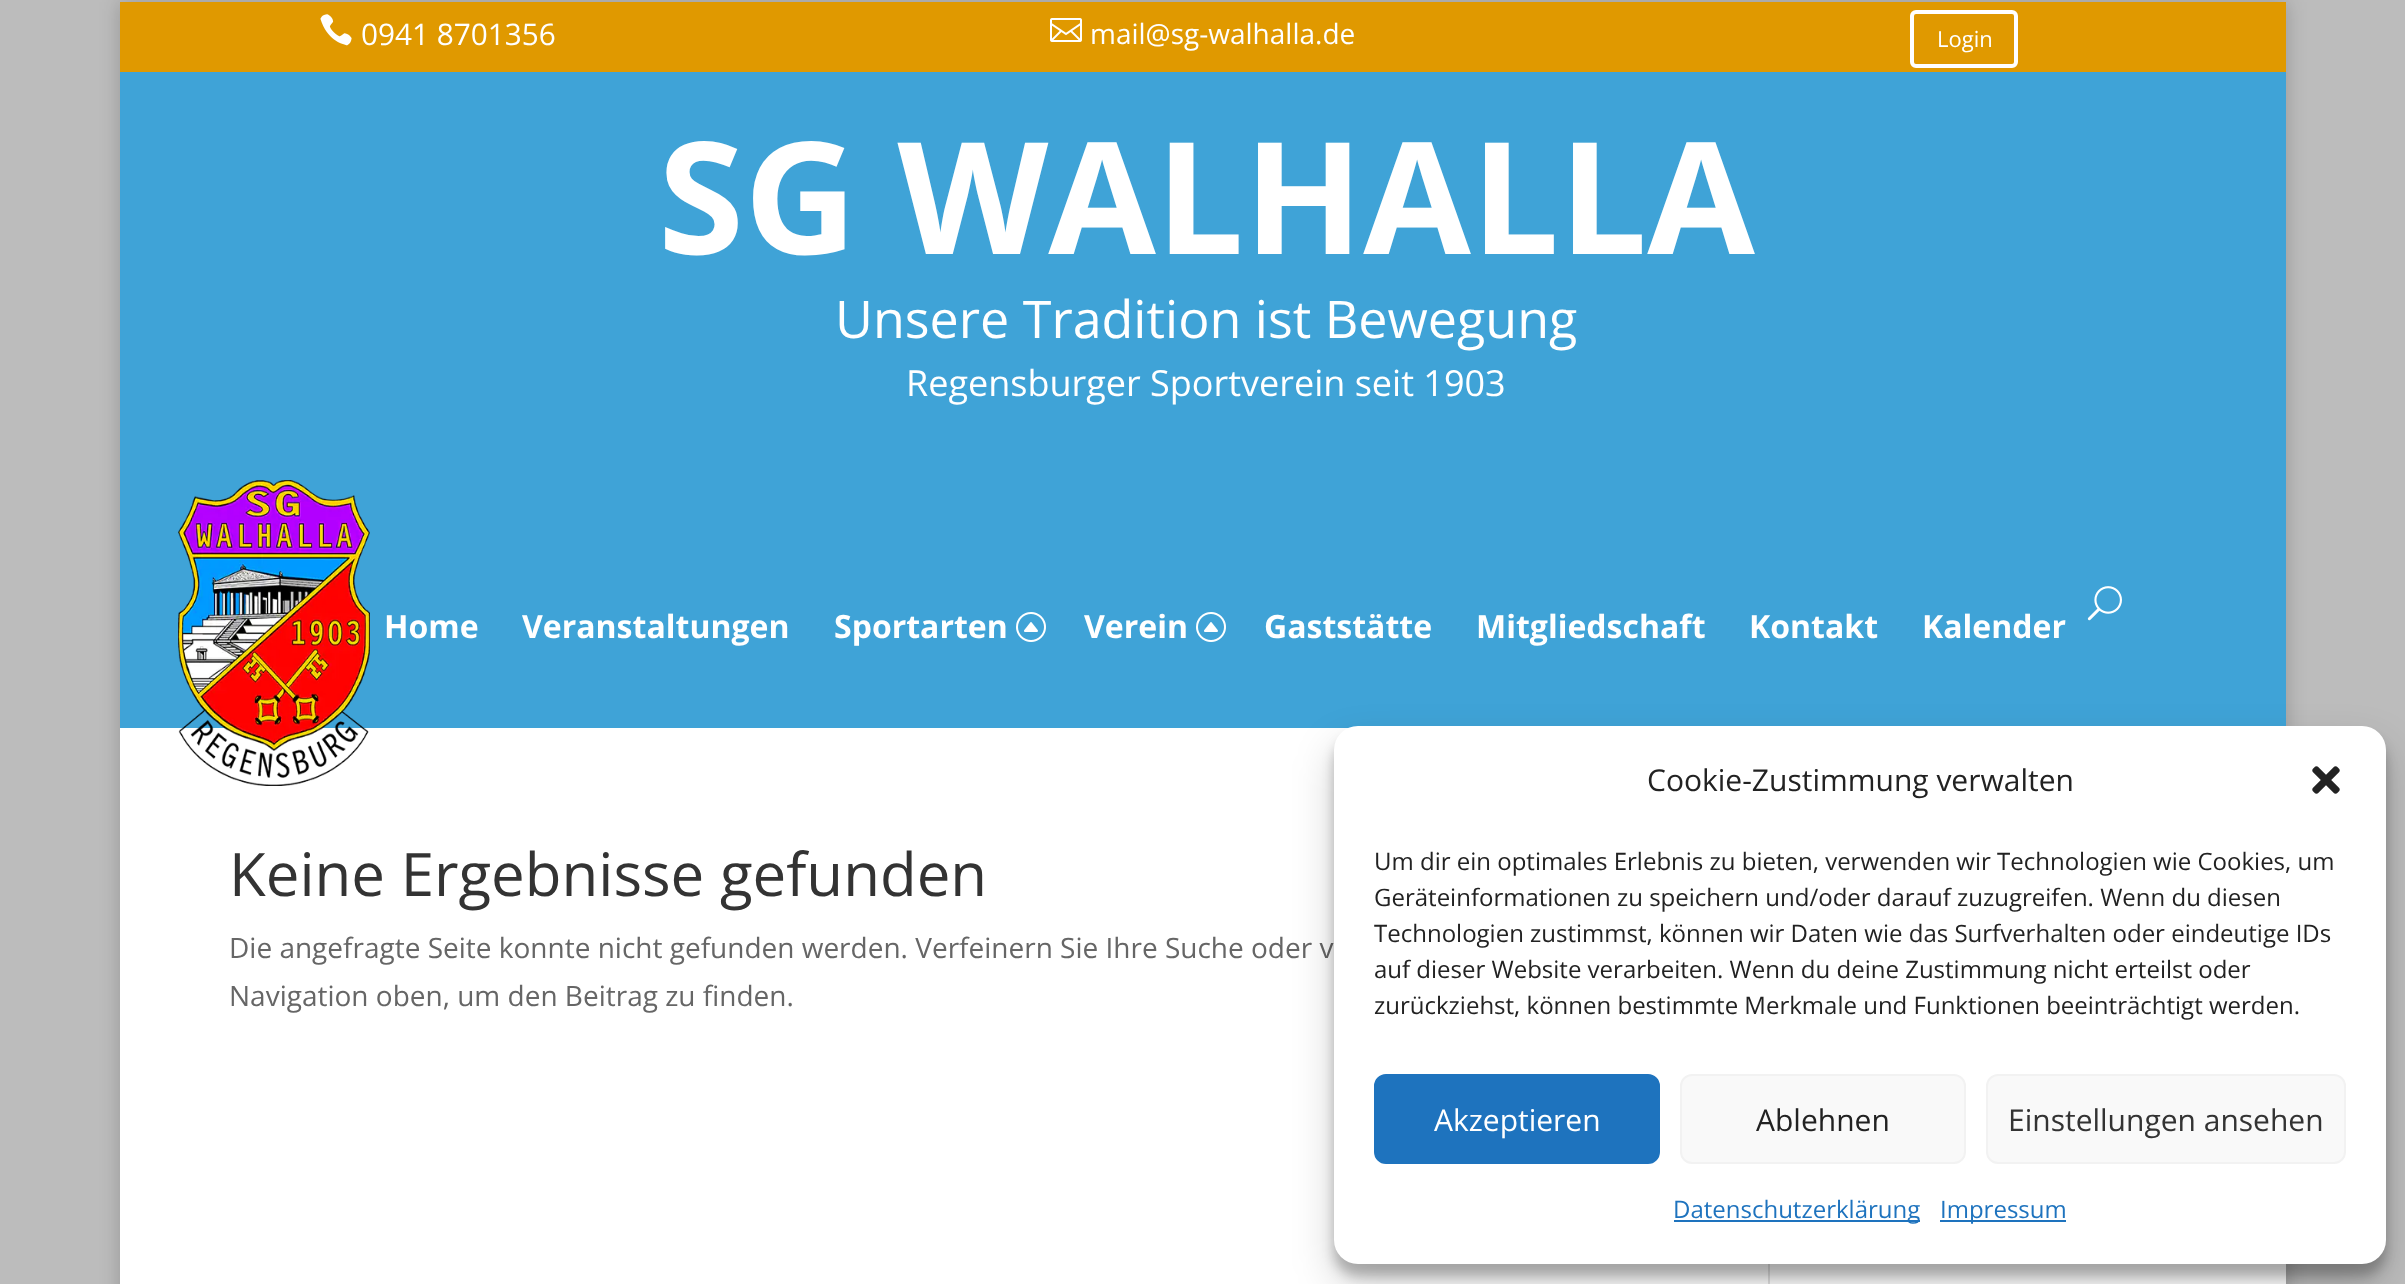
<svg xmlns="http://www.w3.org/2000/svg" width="2405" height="1284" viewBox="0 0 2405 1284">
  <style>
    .t1 { font: 29.75px Open Sans; fill: #fff; }
    .t2 { font: 28px Open Sans; fill: #fff; }
    .t3 { font: 22px Open Sans; fill: #fff; }
    .t4 { font: bold 156px Open Sans; fill: #fff; }
    .t5 { font: 52px Open Sans; fill: #fff; }
    .t6 { font: 36px Open Sans; fill: #fff; }
    .t7 { font: bold 32px Open Sans; fill: #fff; }
    .t8 { font: 60px Open Sans; fill: #333; }
    .t9 { font: 28px Open Sans; fill: #666; }
    .t10 { font: 30px Open Sans; fill: #222; }
    .t11 { font: 24px Open Sans; fill: #222; }
    .t12 { font: 30px Open Sans; fill: #fff; }
    .t13 { font: 30px Open Sans; fill: #333; }
    .t14 { font: 24px Open Sans; fill: #1e73be; }
  </style>
  <rect width="100%" height="100%" fill="#bcbcbc"/>
  <rect x="120" y="2" width="2166" height="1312" fill="#00000033" filter="blur(10px)"/>
  <rect x="120" y="2" width="2166" height="70" fill="#e09900"/>
  <image x="320" y="14" width="32" height="32" href="images/1.png"/>
  <text x="361" y="45" class="t1">0941 8701356</text>
  <image x="1050" y="18" width="32" height="24" href="images/2.png"/>
  <text x="1090" y="44" class="t2">mail@sg-walhalla.de</text>
  <rect x="1912" y="12" width="104" height="54" rx="4" fill="none" stroke="#fff" stroke-width="4"/>
  <text x="1937" y="47" class="t3">Login</text>
  <rect x="120" y="72" width="2166" height="656" fill="#3fa3d7"/>
  <text x="658" y="254" class="t4">SG WALHALLA</text>
  <text x="835" y="338" class="t5">Unsere Tradition ist Bewegung</text>
  <text x="906" y="396" class="t6">Regensburger Sportverein seit 1903</text>
  <rect x="120" y="728" width="2166" height="556" fill="#fff"/>
  <image x="178" y="480" width="192" height="306" href="images/3.png"/>
  <image x="2087" y="586" width="35" height="35" href="images/4.png"/>
  <text x="384" y="638" class="t7">Home</text>
  <text x="522" y="638" class="t7">Veranstaltungen</text>
  <text x="834" y="638" class="t7">Sportarten</text>
  <image x="1016" y="612" width="30" height="30" href="images/5.png"/>
  <text x="1084" y="638" class="t7">Verein</text>
  <image x="1196" y="612" width="30" height="30" href="images/5.png"/>
  <text x="1264" y="638" class="t7">Gaststätte</text>
  <text x="1476" y="638" class="t7">Mitgliedschaft</text>
  <text x="1749" y="638" class="t7">Kontakt</text>
  <text x="1922" y="638" class="t7">Kalender</text>
  <text x="229" y="896" class="t8">Keine Ergebnisse gefunden</text>
  <text x="229" y="958" class="t9">Die angefragte Seite konnte nicht gefunden werden. Verfeinern Sie Ihre Suche oder v</text>
  <text x="229" y="1006" class="t9">Navigation oben, um den Beitrag zu finden.</text>
  <rect x="1768" y="1264" width="2" height="20" fill="#e2e2e2"/>
  <rect x="1334" y="738" width="1052" height="538" rx="24" fill="#0000003b" filter="blur(6px)"/>
  <rect x="1334" y="746" width="1052" height="538" rx="24" fill="#00000030" filter="blur(20px)"/>
  <rect x="1334" y="726" width="1052" height="538" rx="24" fill="#fff"/>
  <text x="1647" y="791" class="t10">Cookie-Zustimmung verwalten</text>
  <image x="2312" y="766" width="28" height="28" href="images/6.png"/>
  <text x="1374" y="870" class="t11">Um dir ein optimales Erlebnis zu bieten, verwenden wir Technologien wie Cookies, um</text>
  <text x="1374" y="906" class="t11">Geräteinformationen zu speichern und/oder darauf zuzugreifen. Wenn du diesen</text>
  <text x="1374" y="942" class="t11">Technologien zustimmst, können wir Daten wie das Surfverhalten oder eindeutige IDs</text>
  <text x="1374" y="978" class="t11">auf dieser Website verarbeiten. Wenn du deine Zustimmung nicht erteilst oder</text>
  <text x="1374" y="1014" class="t11">zurückziehst, können bestimmte Merkmale und Funktionen beeinträchtigt werden.</text>
  <rect x="1375" y="1075" width="284" height="88" rx="11" fill="#1e73be" stroke="#1e73be" stroke-width="2"/>
  <text x="1434" y="1131" class="t12">Akzeptieren</text>
  <rect x="1681" y="1075" width="284" height="88" rx="11" fill="#f9f9f9" stroke="#f2f2f2" stroke-width="2"/>
  <text x="1756" y="1131" class="t10">Ablehnen</text>
  <rect x="1987" y="1075" width="358" height="88" rx="11" fill="#f9f9f9" stroke="#f2f2f2" stroke-width="2"/>
  <text x="2008" y="1131" class="t13">Einstellungen ansehen</text>
  <rect x="1674" y="1220" width="246" height="2" fill="#1e73be"/>
  <text x="1673" y="1218" class="t14">Datenschutzerklärung</text>
  <rect x="1940" y="1220" width="126" height="2" fill="#1e73be"/>
  <text x="1940" y="1218" class="t14">Impressum</text>
</svg>
